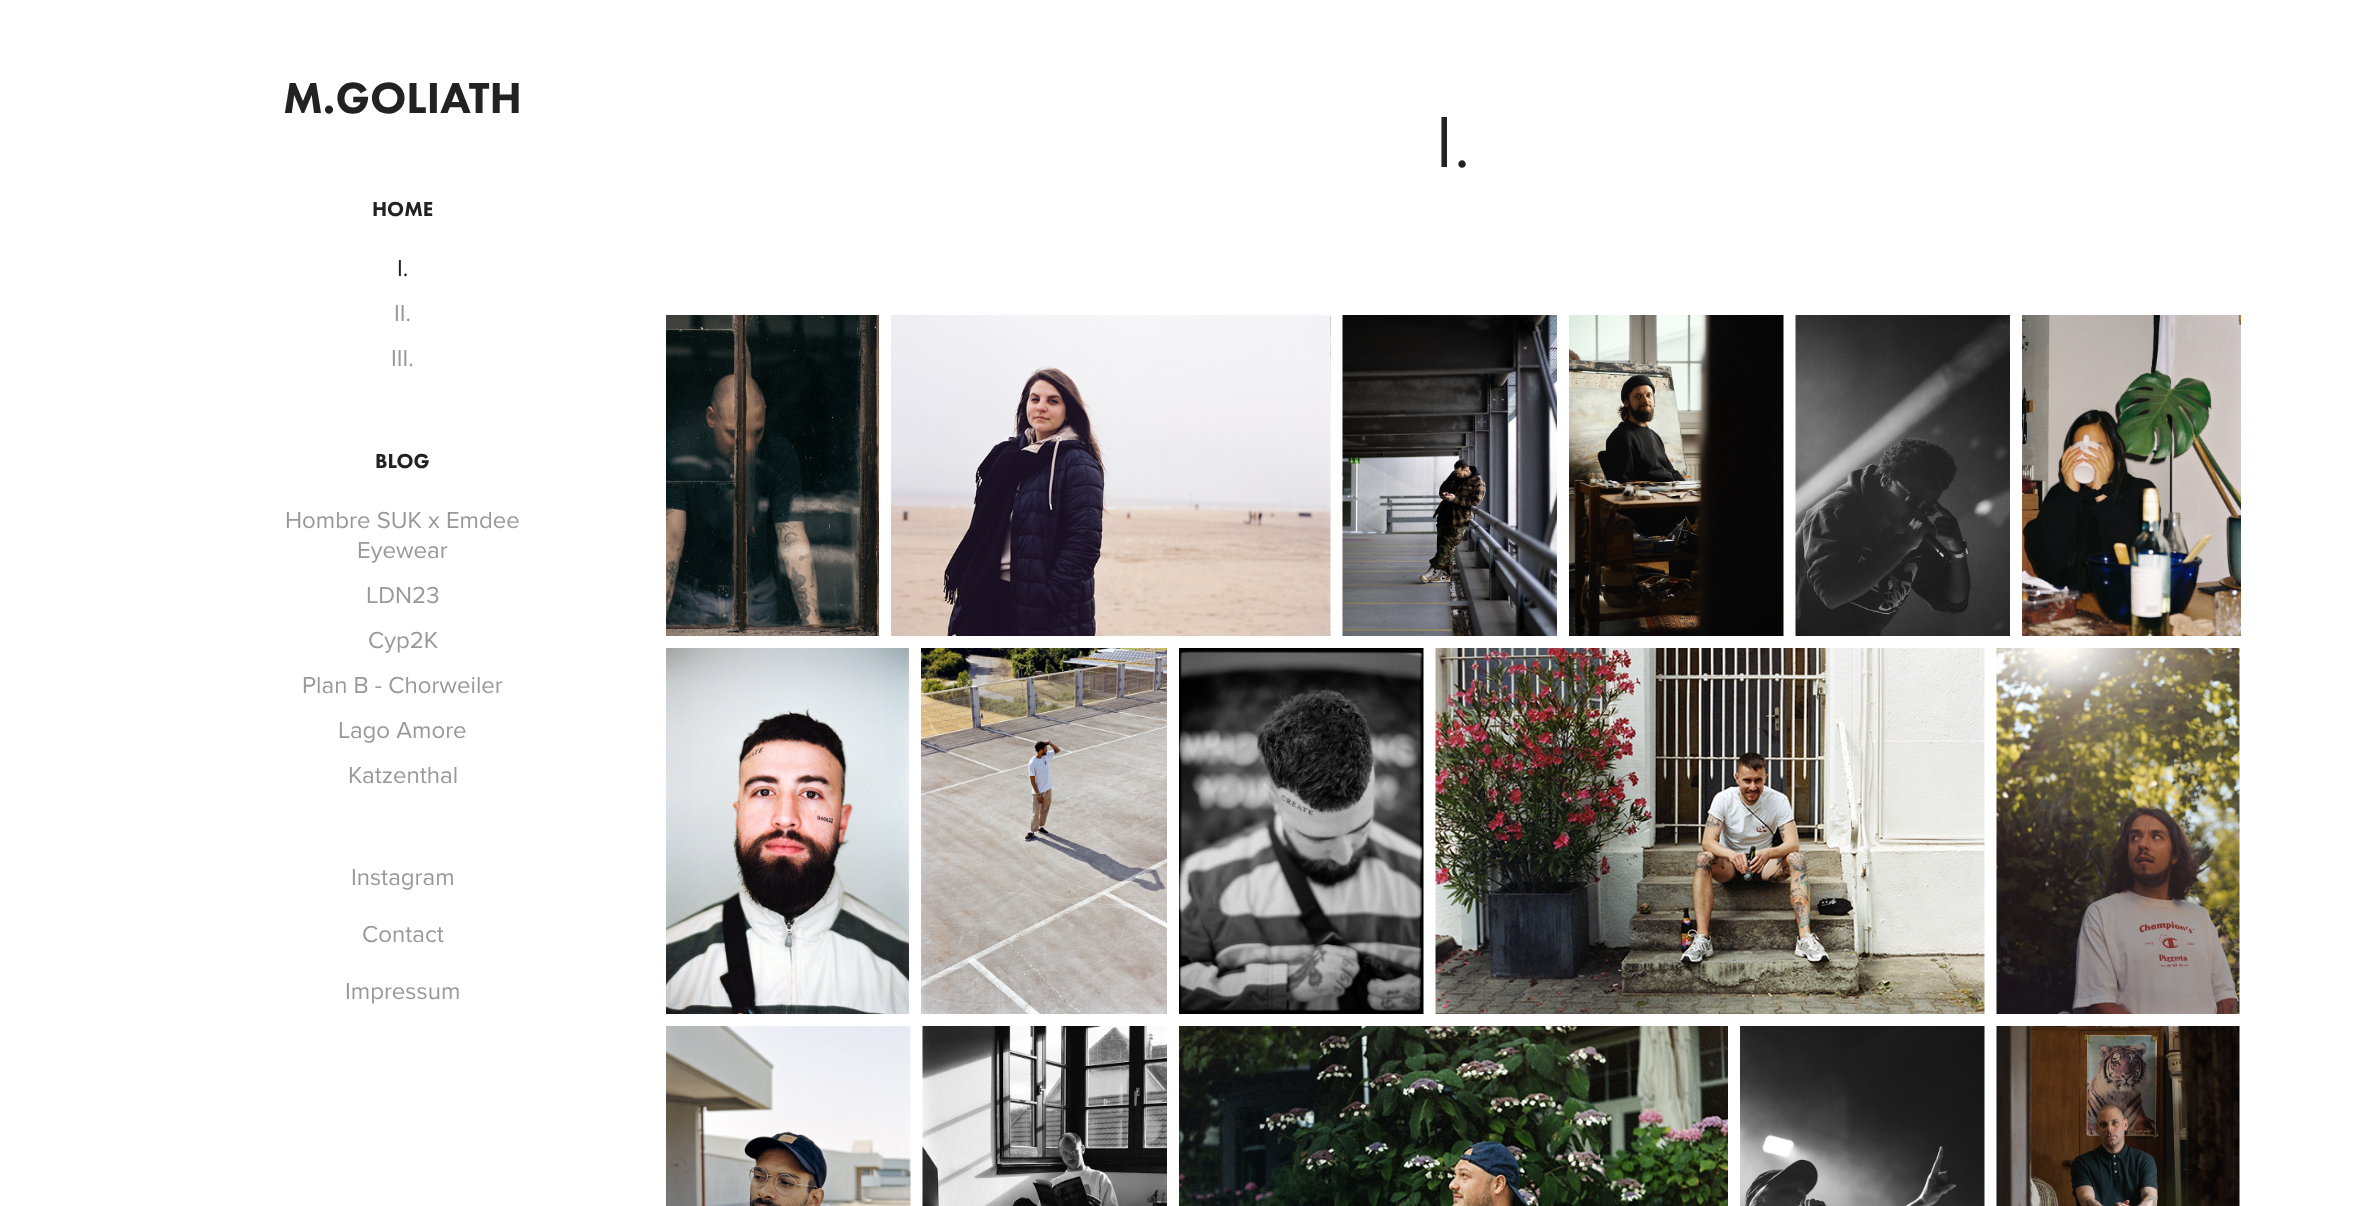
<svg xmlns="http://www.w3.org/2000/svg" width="2380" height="1206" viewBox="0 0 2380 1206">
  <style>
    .t1 { font: 900 45px Futura PT; fill: #222; }
    .t2 { font: 900 21px Futura PT; fill: #222; }
    .t3 { font: 24px Proxima Nova; fill: #222; }
    .t4 { font: 24px Proxima Nova; fill: #999; }
    .t5 { font: 75px Futura PT; fill: #222; }
  </style>
  <rect width="100%" height="100%" fill="#fff"/>
  <text x="283" y="113" class="t1">M.GOLIATH</text>
  <text x="372" y="216" class="t2">HOME</text>
  <text x="397" y="276" class="t3">I.</text>
  <text x="394" y="321" class="t4">II.</text>
  <text x="391" y="366" class="t4">III.</text>
  <text x="375" y="468" class="t2">BLOG</text>
  <text x="285" y="528" class="t4">Hombre SUK x Emdee</text>
  <text x="357" y="558" class="t4">Eyewear</text>
  <text x="366" y="603" class="t4">LDN23</text>
  <text x="368" y="648" class="t4">Cyp2K</text>
  <text x="302" y="693" class="t4">Plan B - Chorweiler</text>
  <text x="338" y="738" class="t4">Lago Amore</text>
  <text x="348" y="783" class="t4">Katzenthal</text>
  <text x="351" y="885" class="t4">Instagram</text>
  <text x="362" y="942" class="t4">Contact</text>
  <text x="345" y="999" class="t4">Impressum</text>
  <text x="1435" y="167" class="t5">I.</text>
  <image x="666" y="315" width="213" height="321" href="images/1.png"/>
  <image x="891" y="315" width="440" height="321" href="images/2.png"/>
  <image x="1342" y="315" width="215" height="321" href="images/3.png"/>
  <image x="1569" y="315" width="215" height="321" href="images/4.png"/>
  <image x="1795" y="315" width="215" height="321" href="images/5.png"/>
  <image x="2022" y="315" width="219" height="321" href="images/6.png"/>
  <image x="666" y="648" width="243" height="366" href="images/7.png"/>
  <image x="921" y="648" width="246" height="366" href="images/8.png"/>
  <image x="1179" y="648" width="245" height="366" href="images/9.png"/>
  <image x="1435" y="648" width="550" height="366" href="images/10.png"/>
  <image x="1996" y="648" width="244" height="366" href="images/11.png"/>
  <image x="666" y="1026" width="245" height="180" href="images/12.png"/>
  <image x="922" y="1026" width="245" height="180" href="images/13.png"/>
  <image x="1179" y="1026" width="549" height="180" href="images/14.png"/>
  <image x="1740" y="1026" width="245" height="180" href="images/15.png"/>
  <image x="1996" y="1026" width="244" height="180" href="images/16.png"/>
</svg>
